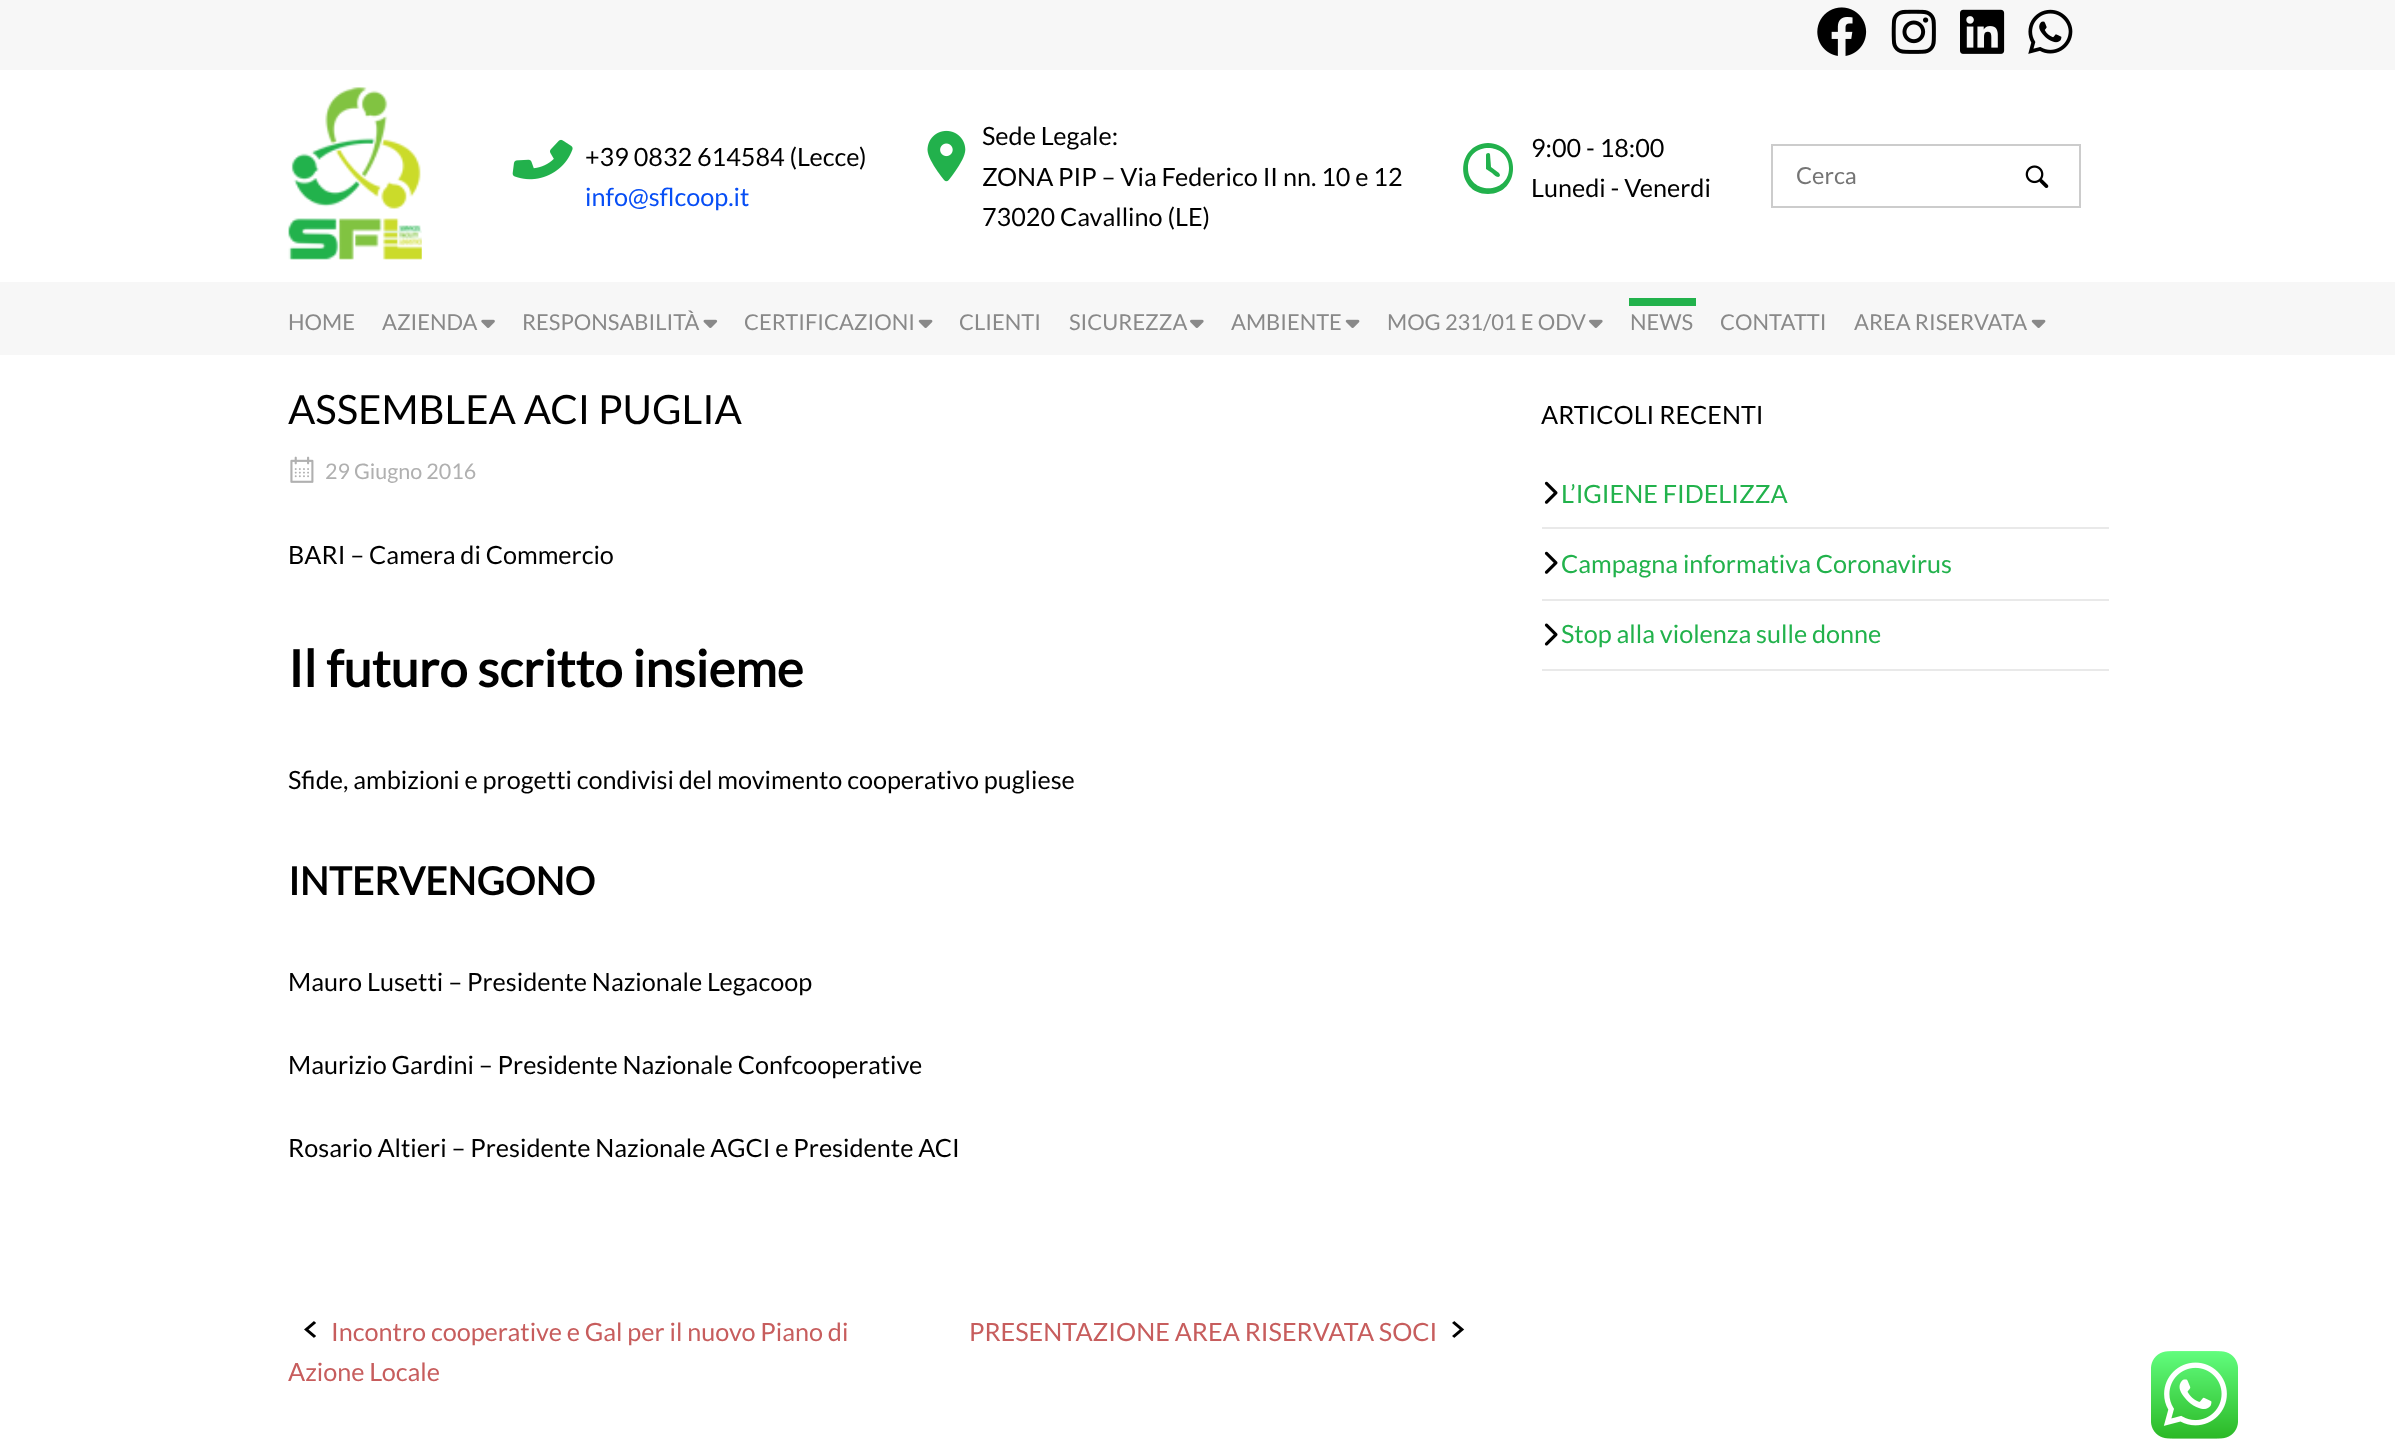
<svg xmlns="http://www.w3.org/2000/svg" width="2395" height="1456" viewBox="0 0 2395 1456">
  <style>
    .t1 { font: 25.2px Lato; fill: #000; }
    .t2 { font: 25.2px Lato; fill: #074ef5; }
    .t3 { font: 23.5px Lato; fill: #757575; }
    .t4 { font: 21.9px Lato; fill: #898989; }
    .t5 { font: 40.25px Lato; fill: #000; }
    .t6 { font: 21.5px Lato; fill: #b0b0b0; }
    .t7 { font: bold 50.75px Lato; fill: #000; }
    .t8 { font: bold 38.5px Lato; fill: #000; }
    .t9 { font: 25.2px Lato; fill: #c75d5d; }
    .t10 { font: 25.2px Lato; fill: #22b24c; }
  </style>
  <rect width="100%" height="100%" fill="#fff"/>
  <rect x="0" y="0" width="2395" height="70" fill="#f7f7f7"/>
  <image x="1817" y="7" width="50" height="49" href="images/1.png"/>
  <image x="1891" y="9" width="45" height="45" href="images/2.png"/>
  <image x="1960" y="9" width="45" height="45" href="images/3.png"/>
  <image x="2028" y="9" width="45" height="45" href="images/4.png"/>
  <image x="288" y="87" width="134" height="173" href="images/5.png"/>
  <image x="512" y="139" width="61" height="41" href="images/6.png"/>
  <text x="585" y="166" class="t1">+39 0832 614584 (Lecce)</text>
  <text x="585" y="206" class="t2">info@sflcoop.it</text>
  <image x="927" y="130" width="39" height="52" href="images/7.png"/>
  <text x="982" y="145" class="t1">Sede Legale:</text>
  <text x="982" y="186" class="t1">ZONA PIP – Via Federico II nn. 10 e 12</text>
  <text x="982" y="226" class="t1">73020 Cavallino (LE)</text>
  <path d="M1486 155C1486 153 1489 152 1490 154L1491 167L1499 173L1500 175C1499 180 1493 174 1492 173L1486 169ZM1488 143C1522 144 1521 194 1488 194C1455 194 1455 144 1488 143ZM1468 168C1468 195 1509 195 1509 168C1509 142 1468 141 1468 168Z" fill="#22b14c"/>
  <text x="1531" y="157" class="t1">9:00 - 18:00</text>
  <text x="1531" y="197" class="t1">Lunedi - Venerdi</text>
  <rect x="1772" y="145" width="308" height="62" fill="none" stroke="#ccc" stroke-width="2"/>
  <text x="1796" y="184" class="t3">Cerca</text>
  <image x="2025" y="165" width="24" height="23" href="images/8.png"/>
  <rect x="0" y="282" width="2395" height="73" fill="#f7f7f7"/>
  <text x="288" y="330" class="t4">HOME</text>
  <text x="382" y="330" class="t4">AZIENDA</text>
  <image x="481" y="319" width="14" height="9" href="images/9.png"/>
  <text x="522" y="330" class="t4">RESPONSABILITÀ</text>
  <image x="703" y="319" width="15" height="9" href="images/10.png"/>
  <text x="744" y="330" class="t4">CERTIFICAZIONI</text>
  <image x="918" y="319" width="15" height="9" href="images/11.png"/>
  <text x="959" y="330" class="t4">CLIENTI</text>
  <text x="1069" y="330" class="t4">SICUREZZA</text>
  <image x="1190" y="319" width="14" height="9" href="images/12.png"/>
  <text x="1231" y="330" class="t4">AMBIENTE</text>
  <image x="1345" y="319" width="15" height="9" href="images/11.png"/>
  <text x="1387" y="330" class="t4">MOG 231/01 E ODV</text>
  <image x="1589" y="319" width="14" height="9" href="images/12.png"/>
  <rect x="1629" y="298" width="67" height="8" fill="#22b24c"/>
  <text x="1630" y="330" class="t4">NEWS</text>
  <text x="1720" y="330" class="t4">CONTATTI</text>
  <text x="1854" y="330" class="t4">AREA RISERVATA</text>
  <image x="2031" y="319" width="15" height="9" href="images/11.png"/>
  <text x="288" y="424" class="t5">ASSEMBLEA ACI PUGLIA</text>
  <image x="290" y="456" width="24" height="27" href="images/13.png"/>
  <text x="325" y="479" class="t6">29 Giugno 2016</text>
  <text x="288" y="564" class="t1">BARI – Camera di Commercio</text>
  <text x="288" y="687" class="t7">Il futuro scritto insieme</text>
  <text x="288" y="789" class="t1">Sfide, ambizioni e progetti condivisi del movimento cooperativo pugliese</text>
  <text x="288" y="895" class="t8">INTERVENGONO</text>
  <text x="288" y="991" class="t1">Mauro Lusetti – Presidente Nazionale Legacoop</text>
  <text x="288" y="1074" class="t1">Maurizio Gardini – Presidente Nazionale Confcooperative</text>
  <text x="288" y="1157" class="t1">Rosario Altieri – Presidente Nazionale AGCI e Presidente ACI</text>
  <image x="304" y="1321" width="12" height="17" href="images/14.png"/>
  <text x="331" y="1341" class="t9">Incontro cooperative e Gal per il nuovo Piano di</text>
  <text x="288" y="1381" class="t9">Azione Locale</text>
  <text x="969" y="1341" class="t9">PRESENTAZIONE AREA RISERVATA SOCI</text>
  <image x="1452" y="1321" width="13" height="17" href="images/15.png"/>
  <text x="1541" y="424" class="t1">ARTICOLI RECENTI</text>
  <rect x="1542" y="527" width="567" height="2" fill="#e9e9e9"/>
  <image x="1544" y="481" width="14" height="23" href="images/16.png"/>
  <text x="1561" y="503" class="t10">L’IGIENE FIDELIZZA</text>
  <rect x="1542" y="599" width="567" height="2" fill="#e9e9e9"/>
  <image x="1544" y="551" width="14" height="23" href="images/16.png"/>
  <text x="1561" y="573" class="t10">Campagna informativa Coronavirus</text>
  <rect x="1542" y="669" width="567" height="2" fill="#e9e9e9"/>
  <image x="1544" y="623" width="14" height="23" href="images/17.png"/>
  <text x="1561" y="643" class="t10">Stop alla violenza sulle donne</text>
  <image x="2151" y="1351" width="87" height="88" href="images/18.png"/>
</svg>
